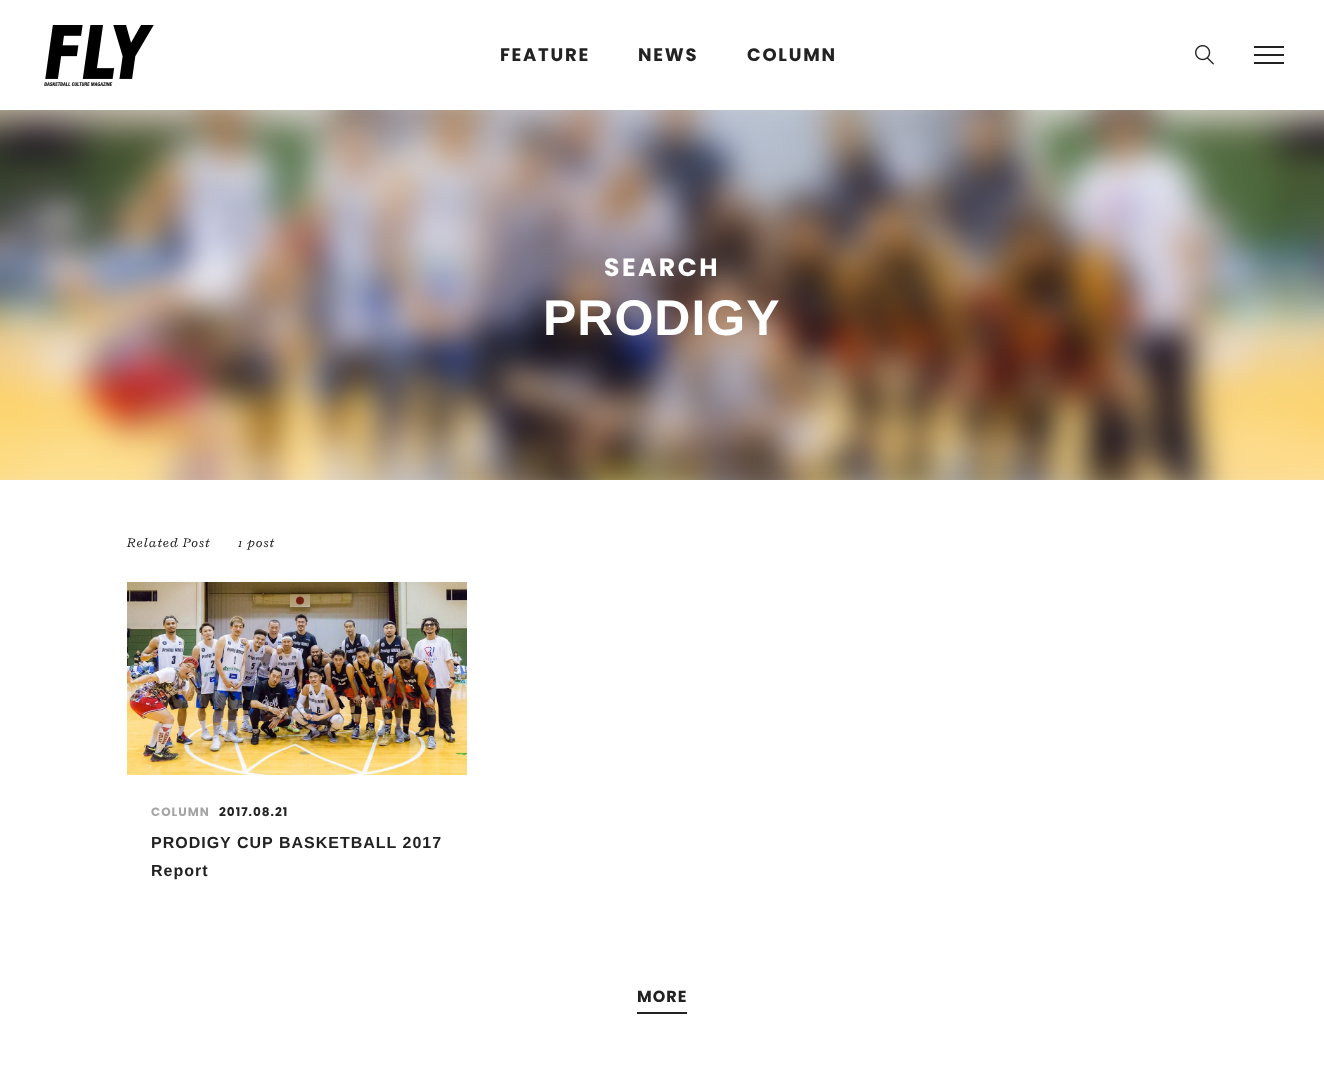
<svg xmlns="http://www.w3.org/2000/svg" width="1324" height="1079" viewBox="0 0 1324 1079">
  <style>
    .t1 { font: bold 18px Poppins; letter-spacing: 1.75px; fill: #222; }
    .t2 { font: bold 25px Poppins; letter-spacing: 2.5px; fill: #fff; }
    .t3 { font: bold 50px Liberation Sans; letter-spacing: 1px; fill: #fff; }
    .t4 { font: italic 14px Radley; letter-spacing: 1px; fill: #222; }
    .t5 { font: bold 12px Poppins; letter-spacing: 1px; fill: #a5a5a5; }
    .t6 { font: bold 12px Poppins; letter-spacing: 1px; fill: #222; }
    .t7 { font: bold 16px Liberation Sans; letter-spacing: 1px; fill: #222; }
    .t8 { font: bold 16px Poppins; letter-spacing: 1px; fill: #222; }
  </style>
  <defs>
    <clipPath id="clip1"><rect x="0" y="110" width="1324" height="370"/></clipPath>
  </defs>
  <rect width="100%" height="100%" fill="#fff"/>
  <g clip-path="url(#clip1)">
    <rect x="-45" y="92" width="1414" height="407" fill="#e7e7e7" filter="blur(15px)"/>
  </g>
  <image x="44" y="25" width="110" height="61" href="images/1.png"/>
  <text x="500" y="61" class="t1">FEATURE</text>
  <text x="638" y="61" class="t1">NEWS</text>
  <text x="747" y="61" class="t1">COLUMN</text>
  <image x="1195" y="45" width="19" height="20" href="images/2.png"/>
  <rect x="1254" y="46" width="30" height="2" fill="#222"/>
  <rect x="1254" y="54" width="30" height="2" fill="#222"/>
  <rect x="1254" y="62" width="30" height="2" fill="#222"/>
  <image x="0" y="110" width="1324" height="370" href="images/3.png"/>
  <text x="604" y="276" class="t2">SEARCH</text>
  <text x="543" y="335" class="t3">PRODIGY</text>
  <text x="127" y="547" class="t4">Related Post</text>
  <text x="238" y="547" class="t4">1 post</text>
  <image x="127" y="582" width="340" height="193" href="images/4.png"/>
  <text x="151" y="816" class="t5">COLUMN</text>
  <text x="219" y="816" class="t6">2017.08.21</text>
  <text x="151" y="848" class="t7">PRODIGY CUP BASKETBALL 2017</text>
  <text x="151" y="876" class="t7">Report</text>
  <text x="637" y="1002" class="t8">MORE</text>
  <rect x="637" y="1012" width="50" height="2" fill="#222"/>
</svg>
